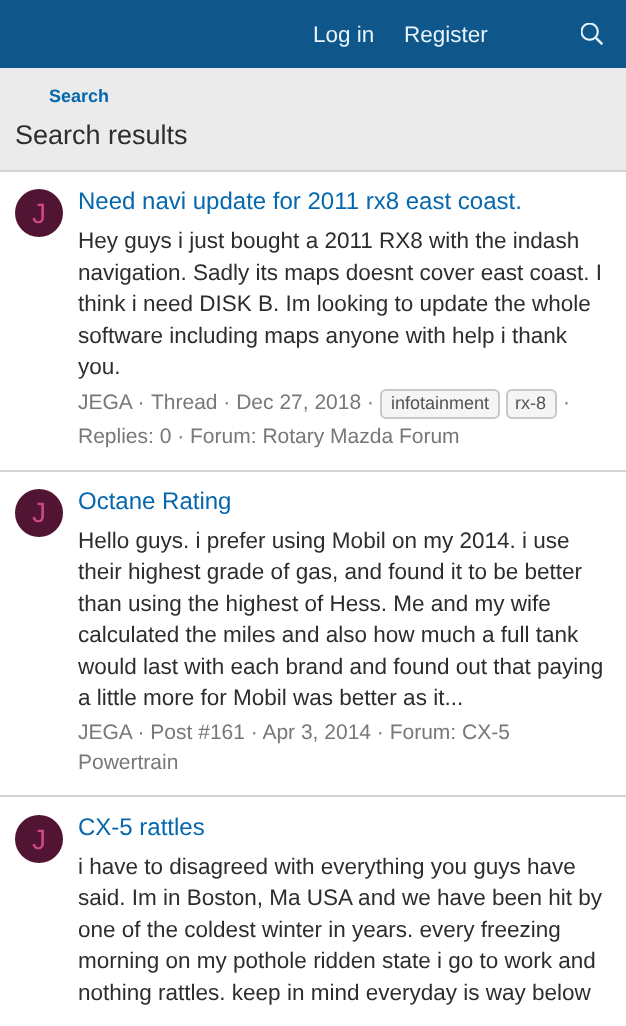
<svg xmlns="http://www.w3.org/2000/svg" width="626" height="1026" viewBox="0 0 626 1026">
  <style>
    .t1 { font: 22.5px Liberation Sans; fill: #e8f4fc; }
    .t2 { font: bold 18px Liberation Sans; fill: #0567ad; }
    .t3 { font: 27px Liberation Sans; fill: #2e2d2d; }
    .t4 { font: 28px Liberation Sans; fill: #d1478c; }
    .t5 { font: 24px Liberation Sans; fill: #0567ad; }
    .t6 { font: 22.5px Liberation Sans; fill: #2e2d2d; }
    .t7 { font: 21px Liberation Sans; fill: #797777; }
    .t8 { font: 18px Liberation Sans; fill: #545252; }
  </style>
  <rect width="100%" height="100%" fill="#ebebeb"/>
  <rect x="0" y="0" width="626" height="68" fill="#0f578a"/>
  <text x="313" y="42" class="t1">Log in</text>
  <text x="404" y="42" class="t1">Register</text>
  <image x="581" y="23" width="22" height="22" href="images/1.png"/>
  <text x="49" y="102" class="t2">Search</text>
  <text x="15" y="144" class="t3">Search results</text>
  <rect x="0" y="172" width="626" height="854" fill="#fff"/>
  <rect x="0" y="170" width="626" height="2" fill="#d5d2d2"/>
  <circle cx="39" cy="213" r="24" fill="#521433"/>
  <text x="32" y="223" class="t4">J</text>
  <text x="78" y="209" class="t5">Need navi update for 2011 rx8 east coast.</text>
  <text x="78" y="248" class="t6">Hey guys i just bought a 2011 RX8 with the indash</text>
  <text x="78" y="280" class="t6">navigation. Sadly its maps doesnt cover east coast. I</text>
  <text x="78" y="311" class="t6">think i need DISK B. Im looking to update the whole</text>
  <text x="78" y="343" class="t6">software including maps anyone with help i thank</text>
  <text x="78" y="374" class="t6">you.</text>
  <text x="78" y="409" class="t7">JEGA ·</text>
  <text x="151" y="409" class="t7">Thread · Dec 27, 2018 ·</text>
  <rect x="381" y="390" width="118" height="28" rx="5" fill="#f5f5f5" stroke="#ccc7c7" stroke-width="2"/>
  <text x="391" y="409" class="t8">infotainment</text>
  <rect x="507" y="390" width="49" height="28" rx="5" fill="#f5f5f5" stroke="#ccc7c7" stroke-width="2"/>
  <text x="515" y="409" class="t8">rx-8</text>
  <text x="563" y="409" class="t7">·</text>
  <text x="78" y="443" class="t7">Replies: 0 · Forum: Rotary Mazda Forum</text>
  <rect x="0" y="470" width="626" height="2" fill="#d5d2d2"/>
  <circle cx="39" cy="513" r="24" fill="#521433"/>
  <text x="32" y="522" class="t4">J</text>
  <text x="78" y="509" class="t5">Octane Rating</text>
  <text x="78" y="548" class="t6">Hello guys. i prefer using Mobil on my 2014. i use</text>
  <text x="78" y="579" class="t6">their highest grade of gas, and found it to be better</text>
  <text x="78" y="611" class="t6">than using the highest of Hess. Me and my wife</text>
  <text x="78" y="642" class="t6">calculated the miles and also how much a full tank</text>
  <text x="78" y="674" class="t6">would last with each brand and found out that paying</text>
  <text x="78" y="705" class="t6">a little more for Mobil was better as it...</text>
  <text x="78" y="739" class="t7">JEGA · Post #161 · Apr 3, 2014 · Forum: CX-5</text>
  <text x="78" y="769" class="t7">Powertrain</text>
  <rect x="0" y="795" width="626" height="2" fill="#d5d2d2"/>
  <circle cx="39" cy="839" r="24" fill="#521433"/>
  <text x="32" y="849" class="t4">J</text>
  <text x="78" y="835" class="t5">CX-5 rattles</text>
  <text x="78" y="874" class="t6">i have to disagreed with everything you guys have</text>
  <text x="78" y="905" class="t6">said. Im in Boston, Ma USA and we have been hit by</text>
  <text x="78" y="937" class="t6">one of the coldest winter in years. every freezing</text>
  <text x="78" y="968" class="t6">morning on my pothole ridden state i go to work and</text>
  <text x="78" y="1000" class="t6">nothing rattles. keep in mind everyday is way below</text>
</svg>
